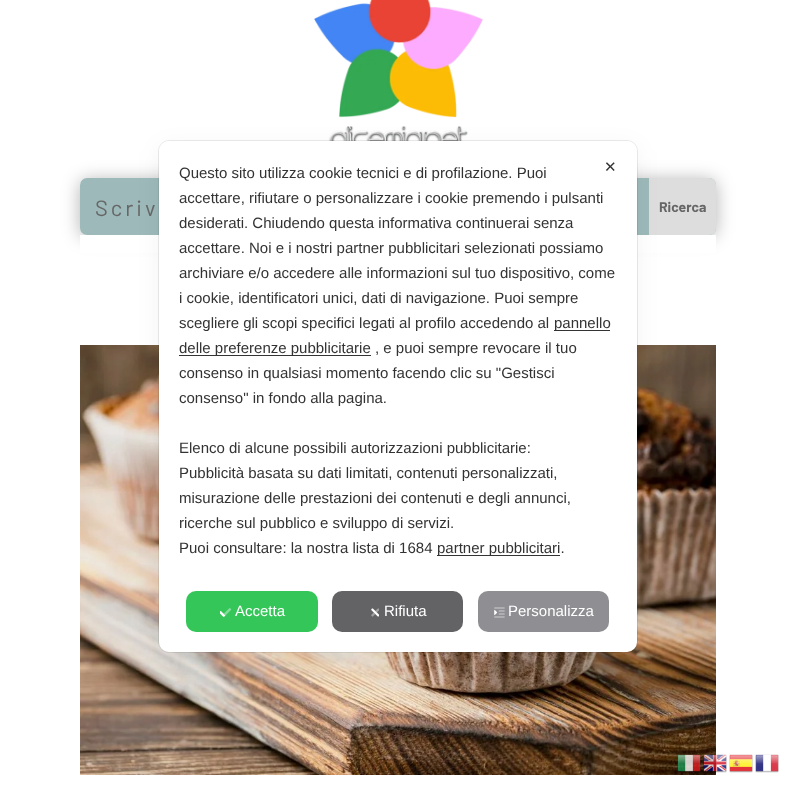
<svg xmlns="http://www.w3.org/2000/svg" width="796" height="791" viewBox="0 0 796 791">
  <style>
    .t1 { font: 15px DejaVu Sans; fill: #333; }
    .t2 { font: 15px Liberation Sans; fill: #333; }
    .t3 { font: 15px Liberation Sans; fill: #fff; }
    .t4 { font: 22px Barlow; letter-spacing: 3px; fill: #666; }
    .t5 { font: bold 14px Barlow; fill: #666; }
  </style>
  <defs>
    <clipPath id="clip1"><path d="M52 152H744V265H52ZM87 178H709C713 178 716 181 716 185V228C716 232 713 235 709 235H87C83 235 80 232 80 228V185C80 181 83 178 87 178Z" clip-rule="evenodd"/></clipPath>
  </defs>
  <rect width="100%" height="100%" fill="#fff"/>
  <image x="314" y="0" width="169" height="141" href="images/4.png"/>
  <g clip-path="url(#clip1)">
    <rect x="80" y="180" width="636" height="57" rx="7" fill="#0000004d" filter="blur(9px)"/>
  </g>
  <rect x="80" y="178" width="636" height="57" rx="7" fill="#699393a6"/>
  <rect x="80" y="235" width="636" height="18" fill="#fff"/>
  <image x="80" y="345" width="636" height="430" href="images/5.png"/>
  <rect x="158.5" y="140.5" width="479" height="512" rx="10.5" fill="none" stroke="#00000014"/>
  <path d="M649 178H709C713 178 716 181 716 185V228C716 232 713 235 709 235H649Z" fill="#ddd"/>
  <rect x="159" y="147" width="478" height="511" rx="10" fill="#0000000d" filter="blur(12px)"/>
  <rect x="159" y="141" width="478" height="511" rx="10" fill="#fff"/>
  <text x="604" y="172" class="t1">✕</text>
  <text x="179" y="178" class="t2">Questo sito utilizza cookie tecnici e di profilazione. Puoi</text>
  <text x="179" y="203" class="t2">accettare, rifiutare o personalizzare i cookie premendo i pulsanti</text>
  <text x="179" y="228" class="t2">desiderati. Chiudendo questa informativa continuerai senza</text>
  <text x="179" y="253" class="t2">accettare. Noi e i nostri partner pubblicitari selezionati possiamo</text>
  <text x="179" y="278" class="t2">archiviare e/o accedere alle informazioni sul tuo dispositivo, come</text>
  <text x="179" y="303" class="t2">i cookie, identificatori unici, dati di navigazione. Puoi sempre</text>
  <text x="179" y="328" class="t2">scegliere gli scopi specifici legati al profilo accedendo al</text>
  <rect x="554" y="330" width="56" height="1" fill="#333"/>
  <text x="554" y="328" class="t2">pannello</text>
  <rect x="179" y="355" width="192" height="1" fill="#333"/>
  <text x="179" y="353" class="t2">delle preferenze pubblicitarie , e puoi sempre revocare il tuo</text>
  <text x="179" y="378" class="t2">consenso in qualsiasi momento facendo clic su "Gestisci</text>
  <text x="179" y="403" class="t2">consenso" in fondo alla pagina.</text>
  <text x="179" y="453" class="t2">Elenco di alcune possibili autorizzazioni pubblicitarie:</text>
  <text x="179" y="478" class="t2">Pubblicità basata su dati limitati, contenuti personalizzati,</text>
  <text x="179" y="503" class="t2">misurazione delle prestazioni dei contenuti e degli annunci,</text>
  <text x="179" y="528" class="t2">ricerche sul pubblico e sviluppo di servizi.</text>
  <text x="179" y="553" class="t2">Puoi consultare: la nostra lista di 1684</text>
  <rect x="437" y="555" width="123" height="1" fill="#333"/>
  <text x="437" y="553" class="t2">partner pubblicitari.</text>
  <rect x="186" y="591" width="132" height="41" rx="10" fill="#34c659"/>
  <image x="220" y="608" width="12" height="9" href="images/1.png"/>
  <text x="235" y="616" class="t3">Accetta</text>
  <rect x="332" y="591" width="131" height="41" rx="10" fill="#636366"/>
  <image x="371" y="608" width="8" height="9" href="images/2.png"/>
  <text x="384" y="616" class="t3">Rifiuta</text>
  <rect x="478" y="591" width="131" height="41" rx="10" fill="#8e8e93"/>
  <image x="494" y="607" width="11" height="11" href="images/3.png"/>
  <text x="508" y="616" class="t3">Personalizza</text>
  <text x="95" y="216" class="t4">Scriv</text>
  <text x="659" y="212" class="t5">Ricerca</text>
  <image x="677" y="754" width="24" height="18" href="images/6.png"/>
  <image x="703" y="754" width="24" height="19" href="images/7.png"/>
  <image x="729" y="754" width="24" height="19" href="images/8.png"/>
  <image x="755" y="754" width="24" height="19" href="images/9.png"/>
</svg>
